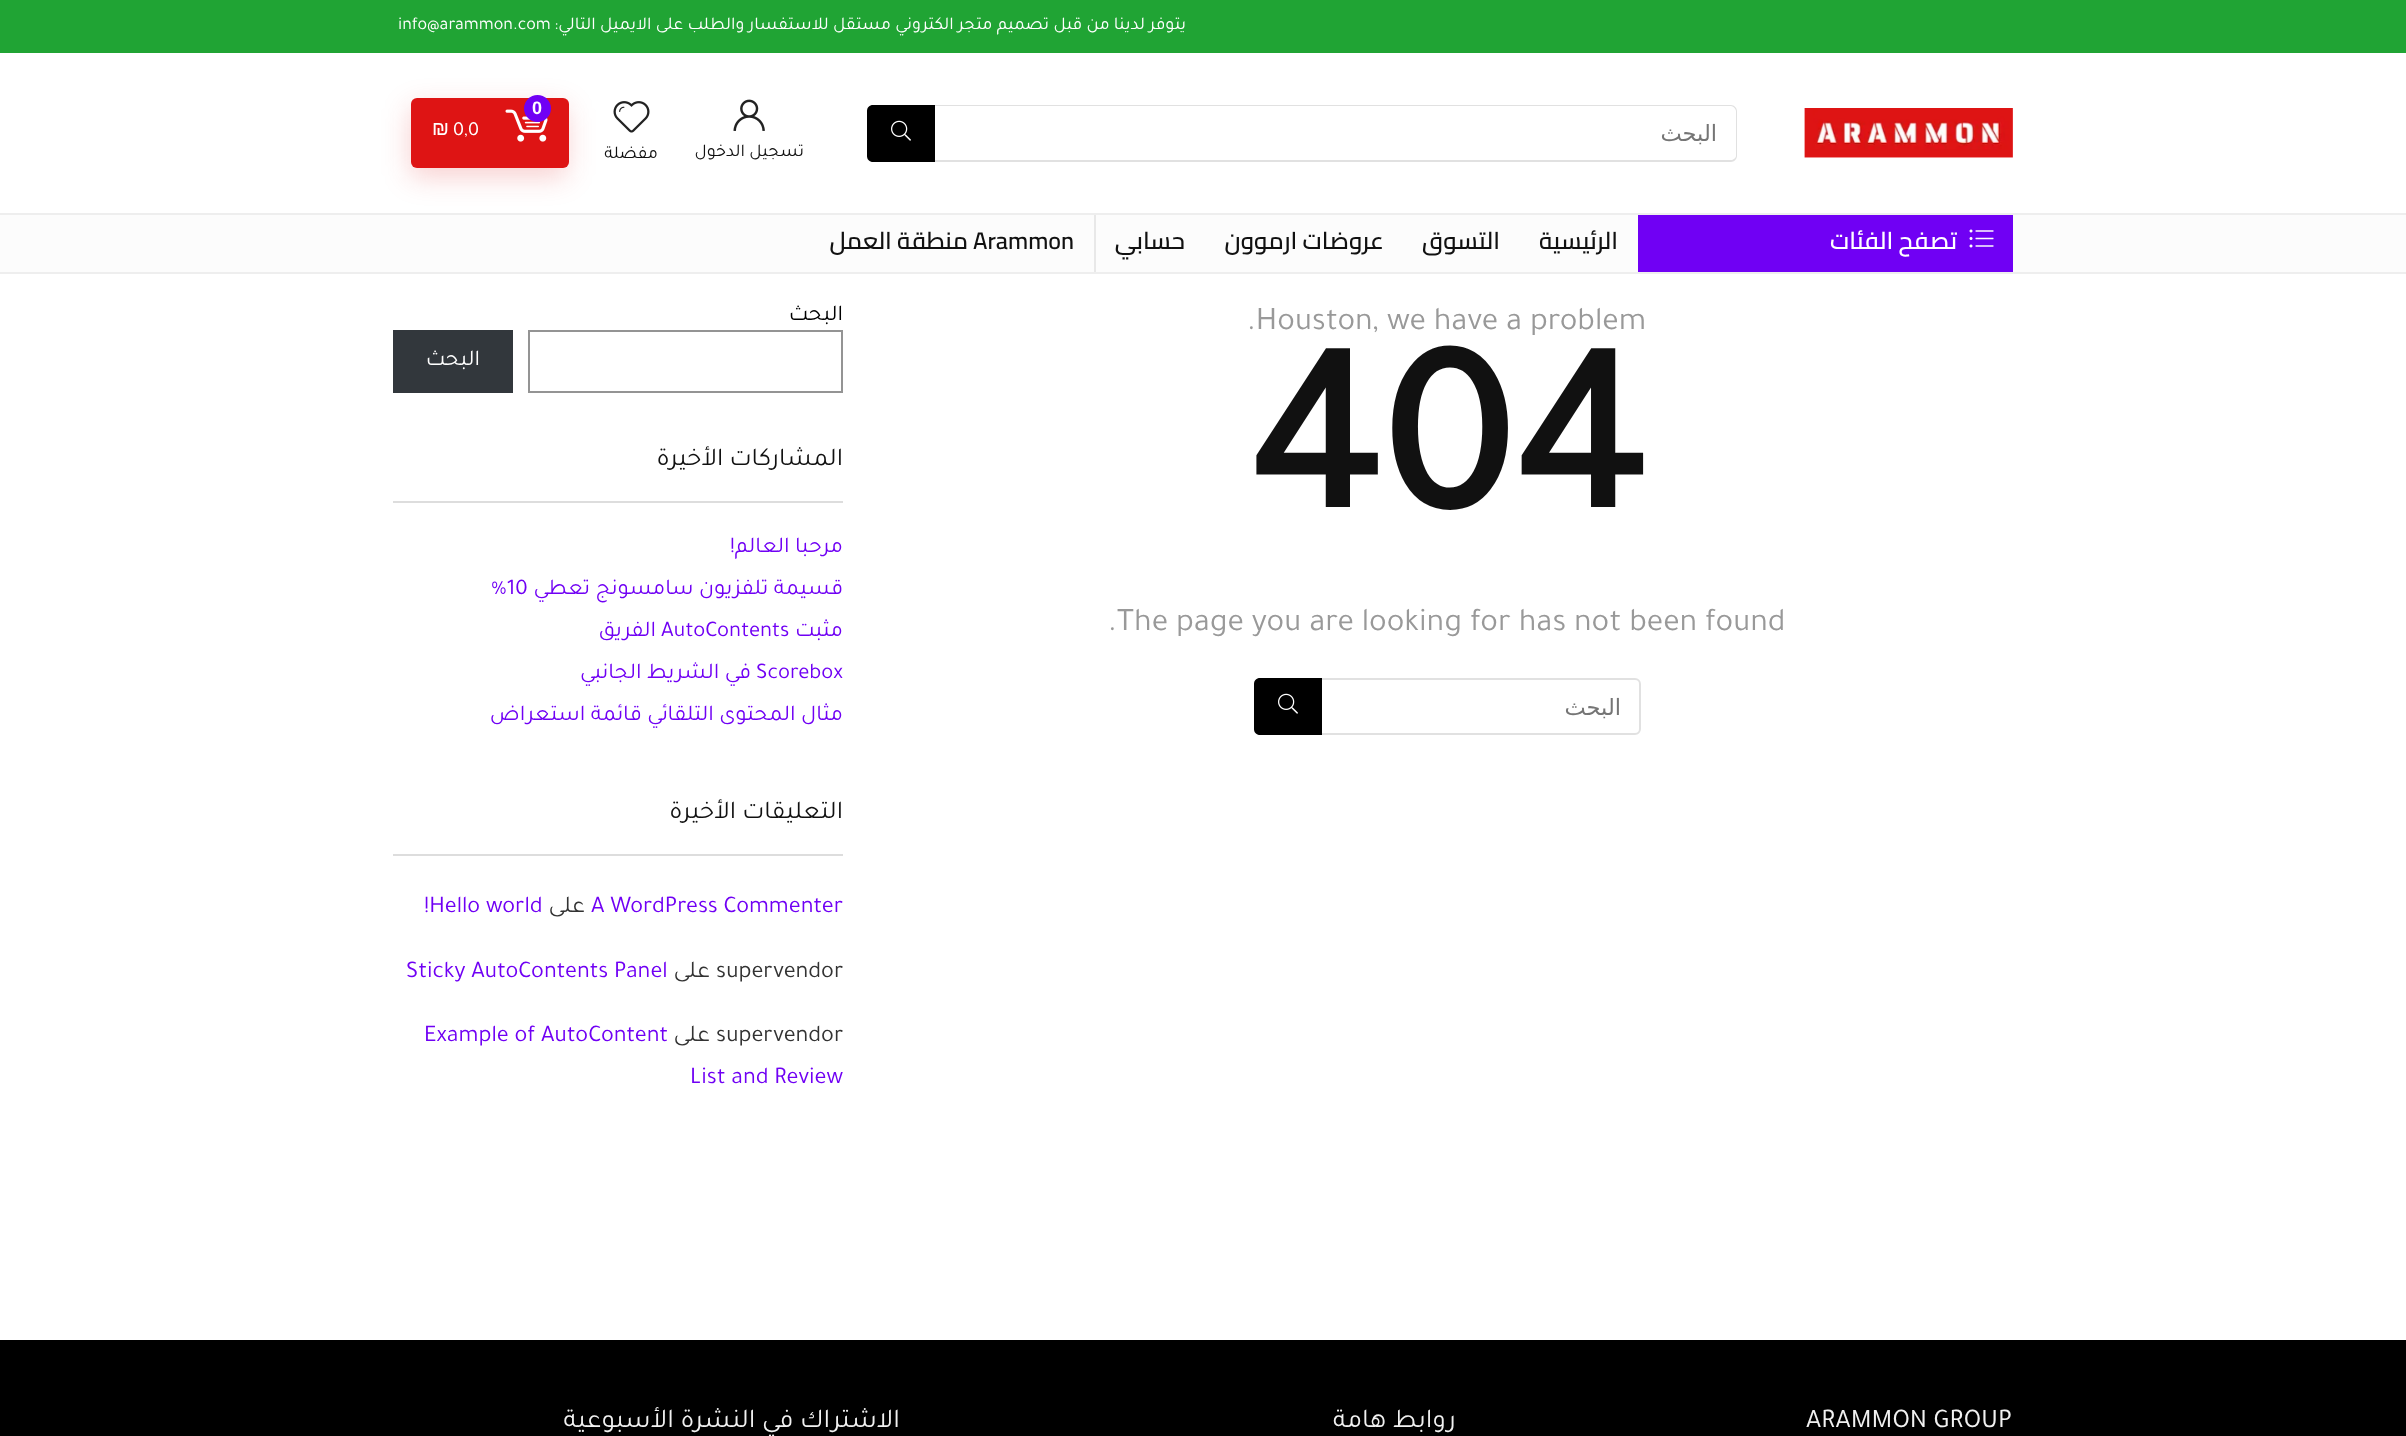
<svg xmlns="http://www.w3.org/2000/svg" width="2406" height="1436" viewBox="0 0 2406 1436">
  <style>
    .t1 { font: 18px Tajawal; direction: rtl; fill: #fff; }
    .t2 { font: 18px Tajawal; fill: #fff; }
    .t3 { font: 22.5px DejaVu Sans; direction: rtl; fill: #757575; }
    .t4 { font: bold 18px Liberation Sans; fill: #fff; }
    .t5 { font: 20px Tajawal; fill: #fff; }
    .t6 { font: 20px Liberation Sans; fill: #fff; }
    .t7 { font: 18px Tajawal; direction: rtl; fill: #111; }
    .t8 { font: 600 24px Cairo; direction: rtl; fill: #fff; }
    .t9 { font: 600 24px Cairo; direction: rtl; fill: #111; }
    .t10 { font: 600 24px Cairo; fill: #111; }
    .t11 { font: 33px Tajawal; fill: #999; }
    .t12 { font: bold 240px Tajawal; fill: #111; }
    .t13 { font: 22.5px Tajawal; direction: rtl; fill: #000; }
    .t14 { font: 22.5px Tajawal; direction: rtl; fill: #fff; }
    .t15 { font: 25.5px Tajawal; direction: rtl; fill: #111; }
    .t16 { font: 22.5px Tajawal; direction: rtl; fill: #7000f4; }
    .t17 { font: 22.5px Tajawal; fill: #7000f4; }
    .t18 { font: 24px Tajawal; fill: #7000f4; }
    .t19 { font: 24px Tajawal; direction: rtl; fill: #333; }
    .t20 { font: 24px Tajawal; fill: #333; }
    .t21 { font: 27px Tajawal; fill: #f1f1f1; }
    .t22 { font: 27px Tajawal; direction: rtl; fill: #f1f1f1; }
  </style>
  <rect width="100%" height="100%" fill="#fff"/>
  <rect x="0" y="0" width="2406" height="53" fill="#20a434"/>
  <text x="1186" y="29" class="t1">يتوفر لدينا من قبل تصميم متجر الكتروني مستقل للاستفسار والطلب على الايميل التالي:</text>
  <text x="398" y="29" class="t2">info@arammon.com</text>
  <image x="1804" y="108" width="209" height="50" href="images/1.png"/>
  <path d="M934 105H1731C1734 105 1737 108 1737 111V156C1737 159 1734 162 1731 162H934ZM934 106H1731C1733 106 1736 109 1736 111V156C1736 158 1733 160 1731 160H934Z" fill="#e1e1e1" fill-rule="evenodd"/>
  <text x="1717" y="141" class="t3">البحث</text>
  <path d="M873 105H935V162H873C869.5 162 867 159.5 867 156V111C867 107.5 869.5 105 873 105Z" fill="#000"/>
  <image x="891" y="120" width="20" height="21" href="images/2.png"/>
  <rect x="0" y="215" width="2406" height="57" fill="#fcfcfc"/>
  <rect x="0" y="213" width="2406" height="2" fill="#eee"/>
  <rect x="410" y="107" width="157" height="70" rx="6" fill="#de141433" filter="blur(14px)"/>
  <rect x="411" y="98" width="158" height="70" rx="6" fill="#de1414"/>
  <image x="505" y="109" width="43" height="33" href="images/3.png"/>
  <circle cx="537.5" cy="108.5" r="13.5" fill="#7000f4"/>
  <text x="532" y="114" class="t4">0</text>
  <text x="453" y="135" class="t5">0,0</text>
  <text x="432" y="135" class="t6">₪</text>
  <image x="733" y="99" width="32" height="32" href="images/4.png"/>
  <text x="804" y="156" class="t7">تسجيل الدخول</text>
  <image x="613" y="101" width="37" height="32" href="images/5.png"/>
  <text x="658" y="158" class="t7">مفضلة</text>
  <rect x="0" y="272" width="2406" height="2" fill="#eee"/>
  <rect x="1638" y="215" width="375" height="57" fill="#7000f4"/>
  <image x="1969" y="229" width="25" height="19" href="images/6.png"/>
  <text x="1957" y="249" class="t8">تصفح الفئات</text>
  <text x="1618" y="249" class="t9">الرئيسية</text>
  <text x="1500" y="249" class="t9">التسوق</text>
  <text x="1384" y="249" class="t9">عروضات ارموون</text>
  <text x="1185" y="249" class="t9">حسابي</text>
  <rect x="1094" y="215" width="2" height="57" fill="#e8e8e8"/>
  <text x="973" y="249" class="t10">Arammon</text>
  <text x="968" y="249" class="t9">منطقة العمل</text>
  <text x="1247" y="329" class="t11">.Houston, we have a problem</text>
  <text x="1248" y="507" class="t12">404</text>
  <text x="1108" y="630" class="t11">.The page you are looking for has not been found</text>
  <rect x="1255" y="679" width="385" height="55" rx="5" fill="none" stroke="#e1e1e1" stroke-width="2"/>
  <text x="1621" y="715" class="t3">البحث</text>
  <path d="M1260 678H1322V735H1260C1256.5 735 1254 732.5 1254 729V684C1254 680.5 1256.5 678 1260 678Z" fill="#000"/>
  <image x="1278" y="693" width="20" height="21" href="images/2.png"/>
  <text x="843" y="320" class="t13">البحث</text>
  <rect x="529" y="331" width="313" height="61" fill="none" stroke="#949494" stroke-width="2"/>
  <rect x="393" y="330" width="120" height="63" fill="#32373c"/>
  <text x="480" y="365" class="t14">البحث</text>
  <rect x="393" y="501" width="450" height="2" fill="#ddd"/>
  <text x="843" y="465" class="t15">المشاركات الأخيرة</text>
  <text x="843" y="552" class="t16">مرحبا العالم!</text>
  <text x="843" y="594" class="t16">قسيمة تلفزيون سامسونج تعطي</text>
  <text x="491" y="594" class="t17">%10</text>
  <text x="843" y="636" class="t16">مثبت</text>
  <text x="661" y="636" class="t17">AutoContents</text>
  <text x="656" y="636" class="t16">الفريق</text>
  <text x="756" y="678" class="t17">Scorebox</text>
  <text x="751" y="678" class="t16">في الشريط الجانبي</text>
  <text x="843" y="720" class="t16">مثال المحتوى التلقائي قائمة استعراض</text>
  <rect x="393" y="854" width="450" height="2" fill="#ddd"/>
  <text x="843" y="818" class="t15">التعليقات الأخيرة</text>
  <text x="591" y="912" class="t18">A WordPress Commenter</text>
  <text x="585" y="912" class="t19">على</text>
  <text x="424" y="912" class="t18">!Hello world</text>
  <text x="716" y="977" class="t20">supervendor</text>
  <text x="710" y="977" class="t19">على</text>
  <text x="406" y="977" class="t18">Sticky AutoContents Panel</text>
  <text x="716" y="1041" class="t20">supervendor</text>
  <text x="710" y="1041" class="t19">على</text>
  <text x="424" y="1041" class="t18">Example of AutoContent</text>
  <text x="690" y="1083" class="t18">List and Review</text>
  <rect x="0" y="1340" width="2406" height="96" fill="#000"/>
  <text x="1806" y="1427" class="t21">ARAMMON GROUP</text>
  <text x="1456" y="1427" class="t22">روابط هامة</text>
  <text x="900" y="1427" class="t22">الاشتراك في النشرة الأسبوعية</text>
</svg>
